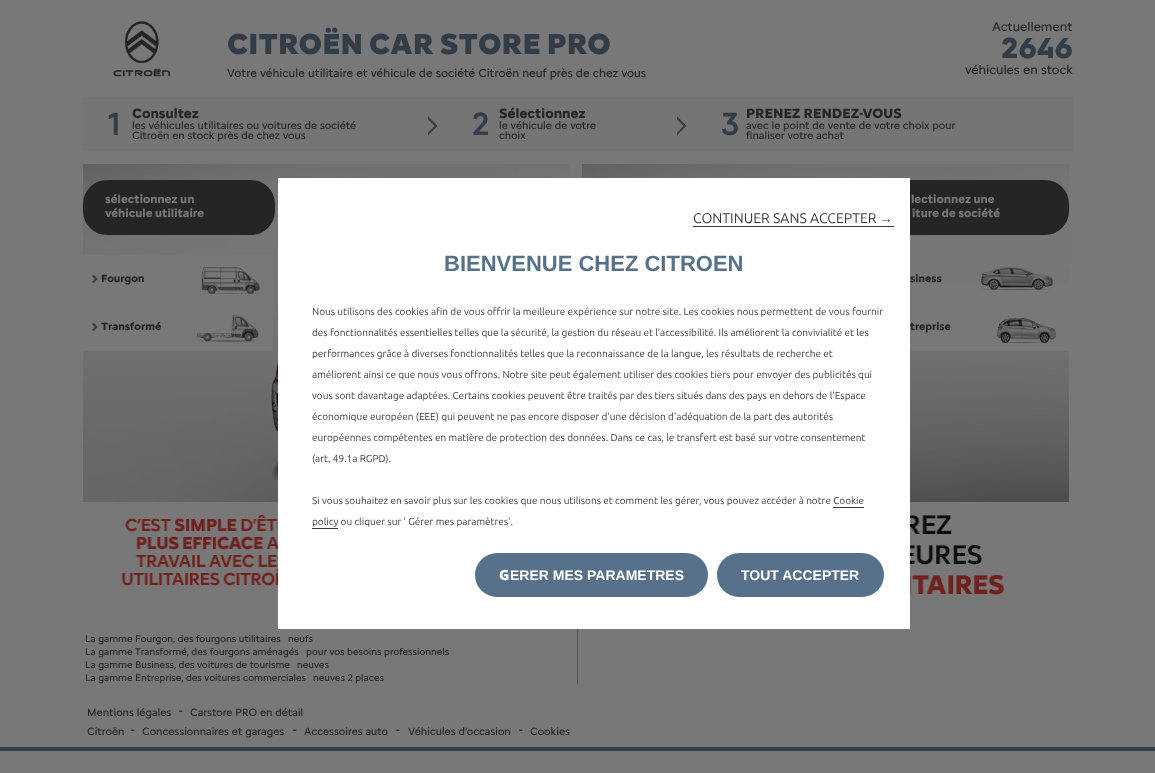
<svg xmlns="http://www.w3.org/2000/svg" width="1155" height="773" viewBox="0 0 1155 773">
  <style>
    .t1 { font: 900 30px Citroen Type; fill: #323d47; }
    .t2 { font: 12px Citroen Type; fill: #262525; }
    .t3 { font: 13px Citroen Type; fill: #262525; }
    .t4 { font: bold 30px Citroen Type; fill: #323d47; }
    .t5 { font: bold 32px 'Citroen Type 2'; fill: #323d47; }
    .t6 { font: bold 14px Citroen Type; fill: #262525; }
    .t7 { font: 11px Citroen Type; fill: #262525; }
    .t8 { font: bold 12px Citroen Type; fill: #787878; }
    .t9 { font: bold 11px Citroen Type; fill: #262525; }
    .t10 { font: 10px Citroen Type; fill: #262525; }
    .t11 { font: 14px Ubuntu; fill: #3b3938; }
    .t12 { font: 14px Liberation Sans; fill: #3b3938; }
    .t13 { font: bold 22px Liberation Sans; fill: #57718a; }
    .t14 { font: 10px Ubuntu; fill: #3b3938; }
    .t15 { font: 900 14px Noto Sans; fill: #fff; }
    .t16 { font: bold 14px Liberation Sans; fill: #fff; }
    .t17 { font: 16px Citroen Type; fill: #262525; }
  </style>
  <rect width="100%" height="100%" fill="#787878"/>
  <image x="113" y="21" width="58" height="56" href="images/1.png"/>
  <image x="113" y="21" width="58" height="56" href="images/2.png"/>
  <text x="227" y="54" class="t1">CITROËN CAR STORE PRO</text>
  <text x="227" y="77" class="t2">Votre véhicule utilitaire et véhicule de société Citroën neuf près de chez vous</text>
  <text x="992" y="31" class="t3">Actuellement</text>
  <text x="1001" y="58" class="t4">2646</text>
  <text x="965" y="74" class="t3">véhicules en stock</text>
  <rect x="83" y="97" width="990" height="54" fill="#757575"/>
  <text x="108" y="135" class="t5">1</text>
  <text x="132" y="118" class="t6">Consultez</text>
  <text x="132" y="129" class="t7">les véhicules utilitaires ou voitures de société</text>
  <text x="132" y="139" class="t7">Citroën en stock près de chez vous</text>
  <image x="428" y="116" width="10" height="20" href="images/3.png"/>
  <text x="472" y="135" class="t5">2</text>
  <text x="499" y="118" class="t6">Sélectionnez</text>
  <text x="499" y="129" class="t7">le véhicule de votre</text>
  <text x="499" y="139" class="t7">choix</text>
  <image x="677" y="116" width="10" height="20" href="images/3.png"/>
  <text x="721" y="135" class="t5">3</text>
  <text x="746" y="118" class="t6">PRENEZ RENDEZ-VOUS</text>
  <text x="746" y="129" class="t7">avec le point de vente de votre choix pour</text>
  <text x="746" y="139" class="t7">finaliser votre achat</text>
  <image x="83" y="164" width="487" height="338" href="images/4.png"/>
  <rect x="83" y="180" width="192" height="55" rx="24" fill="#262525"/>
  <text x="105" y="203" class="t8">sélectionnez un</text>
  <text x="105" y="217" class="t8">véhicule utilitaire</text>
  <rect x="83" y="255" width="190" height="96" fill="#787878"/>
  <image x="92" y="274" width="6" height="10" href="images/5.png"/>
  <text x="101" y="282" class="t9">Fourgon</text>
  <image x="201" y="267" width="59" height="27" href="images/6.png"/>
  <image x="92" y="322" width="6" height="10" href="images/5.png"/>
  <text x="101" y="330" class="t9">Transformé</text>
  <image x="196" y="315" width="63" height="27" href="images/7.png"/>
  <image x="582" y="164" width="487" height="338" href="images/8.png"/>
  <rect x="877" y="180" width="192" height="55" rx="24" fill="#262525"/>
  <text x="911" y="203" class="t8">lectionnez une</text>
  <text x="912" y="217" class="t8">iture de société</text>
  <rect x="910" y="284" width="159" height="67" fill="#787878"/>
  <text x="910" y="282" class="t9">siness</text>
  <image x="980" y="267" width="73" height="23" href="images/9.png"/>
  <text x="910" y="330" class="t9">treprise</text>
  <image x="997" y="315" width="59" height="28" href="images/10.png"/>
  <image x="121" y="507" width="883" height="91" href="images/11.png"/>
  <rect x="577" y="629" width="1" height="55" fill="#535353"/>
  <text x="85" y="642" class="t10">La gamme Fourgon, des fourgons utilitaires</text>
  <text x="288" y="642" class="t10">neufs</text>
  <text x="85" y="655" class="t10">La gamme Transformé, des fourgons aménagés</text>
  <text x="306" y="655" class="t10">pour vos besoins professionnels</text>
  <text x="85" y="668" class="t10">La gamme Business, des voitures de tourisme</text>
  <text x="297" y="668" class="t10">neuves</text>
  <text x="85" y="681" class="t10">La gamme Entreprise, des voitures commerciales</text>
  <text x="313" y="681" class="t10">neuves 2 places</text>
  <rect x="278" y="178" width="632" height="451" fill="#fff"/>
  <text x="693" y="223" class="t11">CONTINUER SANS ACCEPTER</text>
  <text x="879" y="223" class="t12">→</text>
  <rect x="693" y="226" width="201" height="1" fill="#3b3938"/>
  <text x="444" y="271" class="t13">BIENVENUE CHEZ CITROEN</text>
  <text x="312" y="315" class="t14">Nous utilisons des cookies afin de vous offrir la meilleure expérience sur notre site. Les cookies nous permettent de vous fournir</text>
  <text x="312" y="336" class="t14">des fonctionnalités essentielles telles que la sécurité, la gestion du réseau et l’accessibilité. Ils améliorent la convivialité et les</text>
  <text x="312" y="357" class="t14">performances grâce à diverses fonctionnalités telles que la reconnaissance de la langue, les résultats de recherche et</text>
  <text x="312" y="378" class="t14">améliorent ainsi ce que nous vous offrons. Notre site peut également utiliser des cookies tiers pour envoyer des publicités qui</text>
  <text x="312" y="399" class="t14">vous sont davantage adaptées. Certains cookies peuvent être traités par des tiers situés dans des pays en dehors de l'Espace</text>
  <text x="312" y="420" class="t14">économique européen (EEE) qui peuvent ne pas encore disposer d'une décision d'adéquation de la part des autorités</text>
  <text x="312" y="441" class="t14">européennes compétentes en matière de protection des données. Dans ce cas, le transfert est basé sur votre consentement</text>
  <text x="312" y="462" class="t14">(art. 49.1a RGPD).</text>
  <text x="312" y="504" class="t14">Si vous souhaitez en savoir plus sur les cookies que nous utilisons et comment les gérer, vous pouvez accéder à notre Cookie</text>
  <text x="312" y="525" class="t14">policy ou cliquer sur ' Gérer mes paramètres'.</text>
  <rect x="833" y="507" width="31" height="1" fill="#3b3938"/>
  <rect x="312" y="528" width="26" height="1" fill="#3b3938"/>
  <rect x="475" y="553" width="233" height="44" rx="22" fill="#57718a"/>
  <text x="499" y="580" class="t15">G</text>
  <text x="510" y="580" class="t16">ERER MES PARAMETRES</text>
  <rect x="717" y="553" width="167" height="44" rx="22" fill="#57718a"/>
  <text x="741" y="580" class="t16">TOUT ACCEPTER</text>
  <rect x="0" y="747" width="1155" height="4" fill="#323d47"/>
  <text x="87" y="716" class="t7">Mentions légales</text>
  <text x="179" y="716" class="t17">-</text>
  <text x="190" y="716" class="t7">Carstore PRO en détail</text>
  <text x="87" y="735" class="t7">Citroën</text>
  <text x="131" y="735" class="t17">-</text>
  <text x="142" y="735" class="t7">Concessionnaires et garages</text>
  <text x="293" y="735" class="t17">-</text>
  <text x="304" y="735" class="t7">Accessoires auto</text>
  <text x="396" y="735" class="t17">-</text>
  <text x="408" y="735" class="t7">Véhicules d'occasion</text>
  <text x="519" y="735" class="t17">-</text>
  <text x="530" y="735" class="t7">Cookies</text>
</svg>
